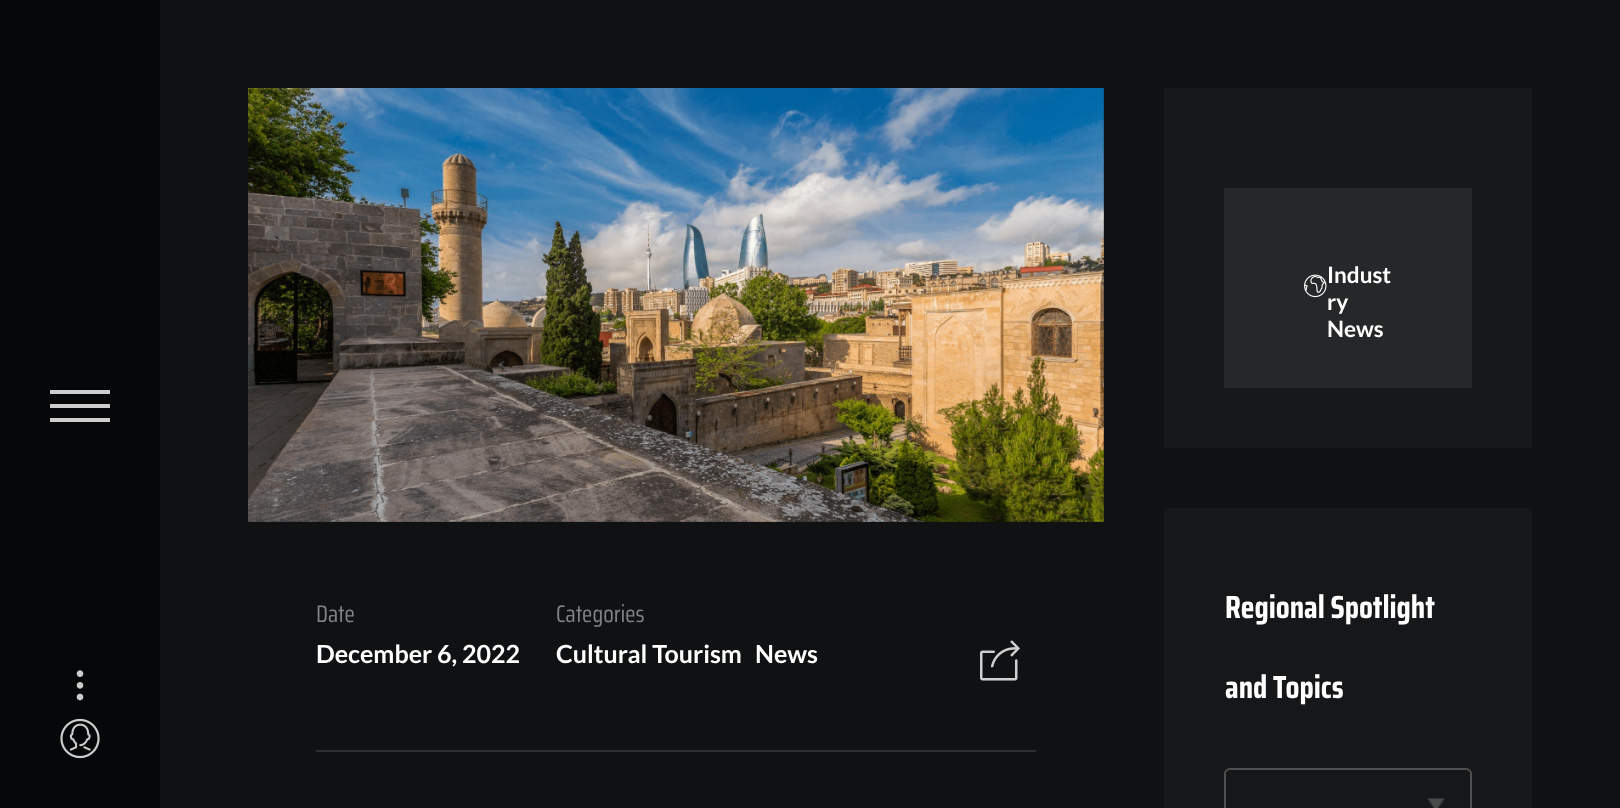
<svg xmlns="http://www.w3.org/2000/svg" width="1620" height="808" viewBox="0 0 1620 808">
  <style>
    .t1 { font: 24px Saira Condensed; fill: #828385; }
    .t2 { font: bold 25px Lato; fill: #fff; }
    .t3 { font: bold 22.5px Lato; fill: #fff; }
    .t4 { font: bold 32px Saira Condensed; fill: #fff; }
  </style>
  <rect width="100%" height="100%" fill="#0f1113"/>
  <rect x="0" y="0" width="160" height="808" fill="#060708"/>
  <rect x="50" y="390" width="60" height="4" fill="#cdcdce"/>
  <rect x="50" y="404" width="60" height="4" fill="#cdcdce"/>
  <rect x="50" y="418" width="60" height="4" fill="#cdcdce"/>
  <image x="76" y="670" width="8" height="31" href="images/1.png"/>
  <image x="60" y="718" width="40" height="41" href="images/2.png"/>
  <image x="248" y="88" width="856" height="434" href="images/3.png"/>
  <rect x="316" y="750" width="720" height="2" fill="#2d2f30"/>
  <text x="316" y="622" class="t1">Date</text>
  <text x="316" y="663" class="t2">December 6, 2022</text>
  <text x="556" y="622" class="t1">Categories</text>
  <text x="556" y="663" class="t2">Cultural Tourism</text>
  <text x="755" y="663" class="t2">News</text>
  <image x="980" y="640" width="40" height="41" href="images/4.png"/>
  <rect x="1164" y="88" width="368" height="360" fill="#161718"/>
  <rect x="1224" y="188" width="248" height="200" fill="#262728"/>
  <image x="1304" y="274" width="23" height="24" href="images/5.png"/>
  <text x="1327" y="283" class="t3">Indust</text>
  <text x="1327" y="310" class="t3">ry</text>
  <text x="1327" y="337" class="t3">News</text>
  <rect x="1164" y="508" width="368" height="300" fill="#161718"/>
  <text x="1225" y="618" class="t4">Regional Spotlight</text>
  <text x="1225" y="698" class="t4">and Topics</text>
  <image x="1427" y="798" width="18" height="10" href="images/6.png"/>
  <rect x="1225" y="769" width="246" height="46" rx="5" fill="none" stroke="#505051" stroke-width="2"/>
</svg>
